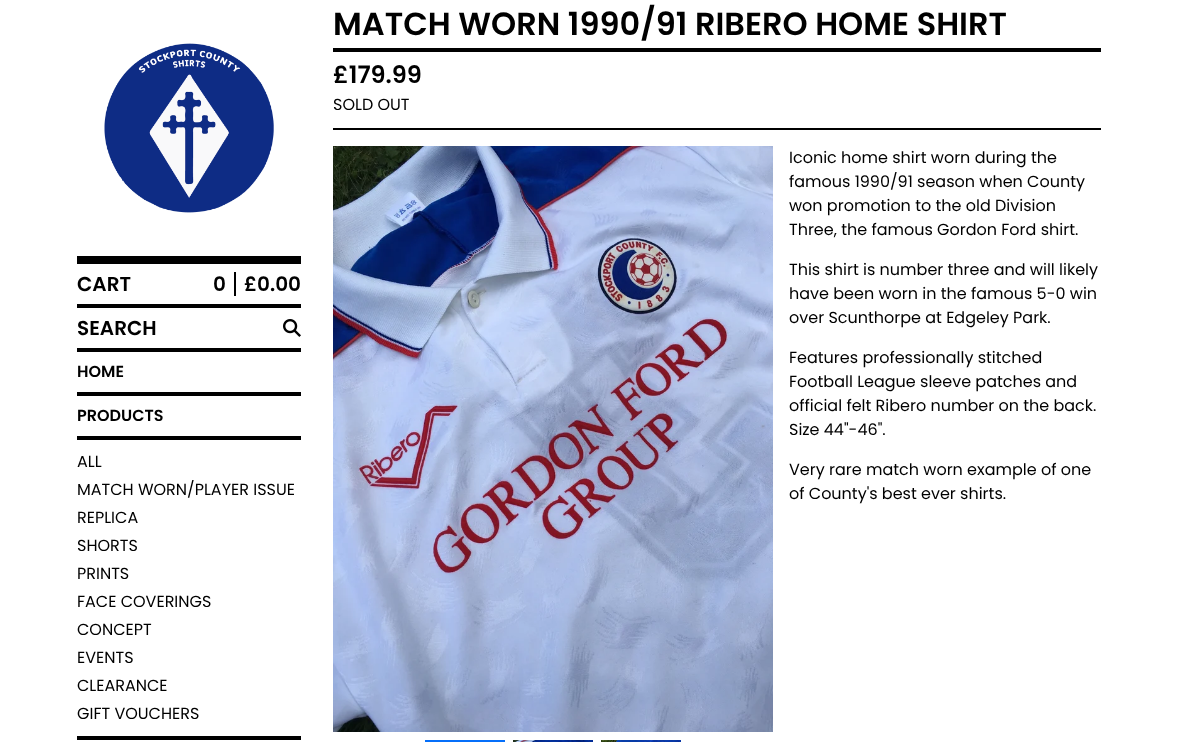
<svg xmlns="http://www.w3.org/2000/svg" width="1178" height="742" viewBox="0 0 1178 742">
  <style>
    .t1 { font: 600 20px Poppins; fill: #000; }
    .t2 { font: 600 16px Poppins; fill: #000; }
    .t3 { font: 16px Poppins; fill: #000; }
    .t4 { font: 600 32px Poppins; fill: #000; }
    .t5 { font: 600 24px Poppins; fill: #000; }
  </style>
  <rect width="100%" height="100%" fill="#fff"/>
  <rect x="77" y="256" width="224" height="8" fill="#000"/>
  <image x="104" y="43" width="170" height="170" href="images/1.png"/>
  <rect x="77" y="304" width="224" height="4" fill="#000"/>
  <text x="77" y="291" class="t1">CART</text>
  <rect x="234" y="272" width="2" height="24" fill="#000"/>
  <text x="213" y="291" class="t1">0</text>
  <text x="244" y="291" class="t1">£0.00</text>
  <rect x="77" y="348" width="224" height="4" fill="#000"/>
  <text x="77" y="335" class="t1">SEARCH</text>
  <image x="283" y="319" width="18" height="18" href="images/2.png"/>
  <rect x="77" y="392" width="224" height="4" fill="#000"/>
  <text x="77" y="377" class="t2">HOME</text>
  <rect x="77" y="736" width="224" height="4" fill="#000"/>
  <rect x="77" y="436" width="224" height="4" fill="#000"/>
  <text x="77" y="421" class="t2">PRODUCTS</text>
  <text x="77" y="467" class="t3">ALL</text>
  <text x="77" y="495" class="t3">MATCH WORN/PLAYER ISSUE</text>
  <text x="77" y="523" class="t3">REPLICA</text>
  <text x="77" y="551" class="t3">SHORTS</text>
  <text x="77" y="579" class="t3">PRINTS</text>
  <text x="77" y="607" class="t3">FACE COVERINGS</text>
  <text x="77" y="635" class="t3">CONCEPT</text>
  <text x="77" y="663" class="t3">EVENTS</text>
  <text x="77" y="691" class="t3">CLEARANCE</text>
  <text x="77" y="719" class="t3">GIFT VOUCHERS</text>
  <rect x="333" y="48" width="768" height="4" fill="#000"/>
  <text x="333" y="35" class="t4">MATCH WORN 1990/91 RIBERO HOME SHIRT</text>
  <rect x="333" y="128" width="768" height="2" fill="#000"/>
  <text x="333" y="83" class="t5">£179.99</text>
  <text x="333" y="110" class="t3">SOLD OUT</text>
  <image x="333" y="146" width="440" height="586" href="images/3.png"/>
  <rect x="426" y="741" width="78" height="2" fill="none" stroke="#056ffa" stroke-width="2"/>
  <image x="513" y="740" width="80" height="2" href="images/4.png"/>
  <image x="601" y="740" width="80" height="2" href="images/5.png"/>
  <text x="789" y="163" class="t3">Iconic home shirt worn during the</text>
  <text x="789" y="187" class="t3">famous 1990/91 season when County</text>
  <text x="789" y="211" class="t3">won promotion to the old Division</text>
  <text x="789" y="235" class="t3">Three, the famous Gordon Ford shirt.</text>
  <text x="789" y="275" class="t3">This shirt is number three and will likely</text>
  <text x="789" y="299" class="t3">have been worn in the famous 5-0 win</text>
  <text x="789" y="323" class="t3">over Scunthorpe at Edgeley Park.</text>
  <text x="789" y="363" class="t3">Features professionally stitched</text>
  <text x="789" y="387" class="t3">Football League sleeve patches and</text>
  <text x="789" y="411" class="t3">official felt Ribero number on the back.</text>
  <text x="789" y="435" class="t3">Size 44"-46".</text>
  <text x="789" y="475" class="t3">Very rare match worn example of one</text>
  <text x="789" y="499" class="t3">of County's best ever shirts.</text>
</svg>
